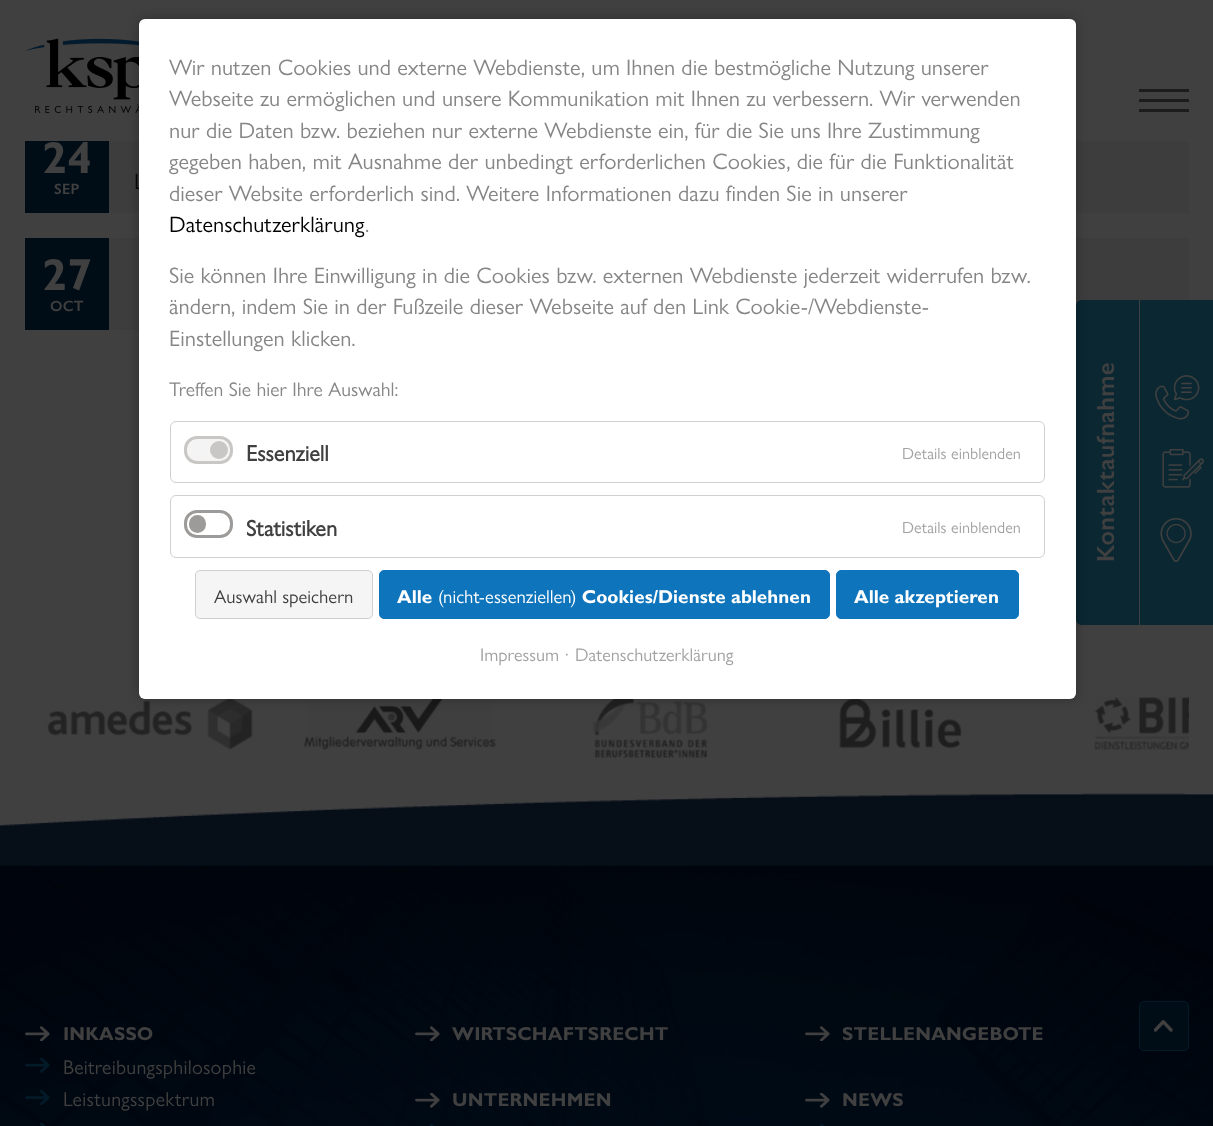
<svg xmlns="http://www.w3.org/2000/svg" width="1213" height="1126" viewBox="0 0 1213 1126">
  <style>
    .t1 { font: 22.5px 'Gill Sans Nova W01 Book'; letter-spacing: 0.25px; fill: #080808; }
    .t2 { font: 22.5px 'Gill Sans Nova W01 Book'; fill: #868686; }
    .t3 { font: 22.5px 'Gill Sans Nova W01 Book'; fill: #000; }
    .t4 { font: 19.75px 'Gill Sans Nova W01 Book'; fill: #868686; }
    .t5 { font: bold 22.5px 'Gill Sans Nova W01 Book'; fill: #404040; }
    .t6 { font: 16.25px 'Gill Sans Nova W01 Book'; fill: #a2a2a2; }
    .t7 { font: 18.75px 'Gill Sans Nova W01 Book'; fill: #404040; }
    .t8 { font: bold 18.75px 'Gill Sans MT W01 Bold'; fill: #fff; }
    .t9 { font: 18.75px 'Gill Sans Nova W01 Book'; fill: #fff; }
    .t10 { font: 18.25px 'Gill Sans Nova W01 Book'; fill: #a2a2a2; }
    .t11 { font: bold 45px 'Gill Sans MT W01 Bold'; letter-spacing: 0.25px; fill: #404040; }
    .t12 { font: 600 15px 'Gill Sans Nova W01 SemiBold'; letter-spacing: 0.25px; fill: #404040; }
    .t13 { font: 600 25px 'Gill Sans Nova W01 SemiBold'; letter-spacing: 0.25px; fill: #404040; }
    .t14 { font: bold 18.75px 'Gill Sans MT W01 Bold'; letter-spacing: 0.25px; fill: #404040; }
    .t15 { font: 20px 'Gill Sans Nova W01 Book'; letter-spacing: 0.25px; fill: #404040; }
  </style>
  <rect width="100%" height="100%" fill="#404040"/>
  <image x="25" y="38" width="114" height="75" href="images/1.png"/>
  <rect x="109" y="141" width="1080" height="72" fill="#3d3d3d"/>
  <rect x="109" y="238" width="1080" height="92" fill="#3d3d3d"/>
  <path d="M1082 300H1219V625H1082C1078.5 625 1076 622.5 1076 619V306C1076 302.5 1078.5 300 1082 300Z" fill="#0a2732"/>
  <image x="47" y="699" width="206" height="51" href="images/7.png"/>
  <image x="304" y="699" width="192" height="51" href="images/8.png"/>
  <image x="592" y="699" width="116" height="59" href="images/9.png"/>
  <image x="839" y="699" width="123" height="50" href="images/10.png"/>
  <image x="1094" y="697" width="95" height="53" href="images/11.png"/>
  <rect x="139" y="19" width="937" height="680" rx="6" fill="#00000040" filter="blur(6px)"/>
  <text x="134" y="189" class="t1">L</text>
  <rect x="139" y="19" width="937" height="680" rx="6" fill="#fff"/>
  <text x="169" y="75" class="t2">Wir nutzen Cookies und externe Webdienste, um Ihnen die bestmögliche Nutzung unserer</text>
  <text x="169" y="106" class="t2">Webseite zu ermöglichen und unsere Kommunikation mit Ihnen zu verbessern. Wir verwenden</text>
  <text x="169" y="138" class="t2">nur die Daten bzw. beziehen nur externe Webdienste ein, für die Sie uns Ihre Zustimmung</text>
  <text x="169" y="169" class="t2">gegeben haben, mit Ausnahme der unbedingt erforderlichen Cookies, die für die Funktionalität</text>
  <text x="169" y="201" class="t2">dieser Website erforderlich sind. Weitere Informationen dazu finden Sie in unserer</text>
  <text x="169" y="232" class="t3">Datenschutzerklärung</text>
  <text x="365" y="232" class="t2">.</text>
  <text x="169" y="283" class="t2">Sie können Ihre Einwilligung in die Cookies bzw. externen Webdienste jederzeit widerrufen bzw.</text>
  <text x="169" y="314" class="t2">ändern, indem Sie in der Fußzeile dieser Webseite auf den Link Cookie-/Webdienste-</text>
  <text x="169" y="346" class="t2">Einstellungen klicken.</text>
  <text x="169" y="396" class="t4">Treffen Sie hier Ihre Auswahl:</text>
  <rect x="170.5" y="421.5" width="874" height="61" rx="5.5" fill="none" stroke="#d0d0d0"/>
  <rect x="185.5" y="437.5" width="46" height="25" rx="11.5" fill="#f4f4f4" stroke="#c8c7c5" stroke-width="3"/>
  <circle cx="219" cy="450" r="9" fill="#c8c7c5"/>
  <text x="246" y="461" class="t5">Essenziell</text>
  <text x="902" y="459" class="t6">Details einblenden</text>
  <rect x="170.5" y="495.5" width="874" height="62" rx="5.5" fill="none" stroke="#d0d0d0"/>
  <rect x="185.5" y="511.5" width="46" height="25" rx="11.5" fill="none" stroke="#9c9b99" stroke-width="3"/>
  <rect x="189" y="515" width="17" height="18" rx="8.5" fill="#9c9b99"/>
  <text x="246" y="536" class="t5">Statistiken</text>
  <text x="902" y="533" class="t6">Details einblenden</text>
  <rect x="195.5" y="570.5" width="177" height="48" rx="4.5" fill="#f5f5f5" stroke="#cfcfcf"/>
  <text x="214" y="603" class="t7">Auswahl speichern</text>
  <rect x="379.5" y="570.5" width="450" height="48" rx="4.5" fill="#0e74bb" stroke="#0e74bb"/>
  <text x="397" y="603" class="t8">Alle</text>
  <text x="438" y="603" class="t9">(nicht-essenziellen)</text>
  <text x="582" y="603" class="t8">Cookies/Dienste ablehnen</text>
  <rect x="836.5" y="570.5" width="182" height="48" rx="4.5" fill="#0e74bb" stroke="#0e74bb"/>
  <text x="854" y="603" class="t8">Alle akzeptieren</text>
  <text x="480" y="661" class="t10">Impressum</text>
  <text x="565" y="661" class="t10">·</text>
  <text x="575" y="661" class="t10">Datenschutzerklärung</text>
  <rect x="1139" y="89" width="50" height="3" fill="#1c1c1c"/>
  <rect x="1139" y="99" width="50" height="3" fill="#1c1c1c"/>
  <rect x="1139" y="109" width="50" height="3" fill="#1c1c1c"/>
  <rect x="25" y="141" width="84" height="72" fill="#000d17"/>
  <text x="42" y="173" class="t11">24</text>
  <text x="54" y="194" class="t12">SEP</text>
  <rect x="25" y="238" width="84" height="92" fill="#000d17"/>
  <text x="42" y="290" class="t11">27</text>
  <text x="50" y="311" class="t12">OCT</text>
  <text x="1114" y="562" transform="rotate(-90 1114 562)" class="t13">Kontaktaufnahme</text>
  <rect x="1139" y="300" width="1" height="325" fill="#404040"/>
  <image x="1155" y="375" width="45" height="45" href="images/2.png"/>
  <image x="1162" y="449" width="42" height="39" href="images/3.png"/>
  <image x="1160" y="518" width="32" height="44" href="images/4.png"/>
  <image x="0" y="793" width="1213" height="333" href="images/6.png"/>
  <rect x="1139" y="1001" width="50" height="50" rx="5" fill="#000d17"/>
  <image x="1154" y="1020" width="19" height="12" href="images/5.png"/>
  <rect x="1139.5" y="1001.5" width="49" height="49" rx="4.5" fill="none" stroke="#031b29"/>
  <image x="25" y="1026" width="25" height="15" href="images/12.png"/>
  <text x="63" y="1040" class="t14">INKASSO</text>
  <image x="25" y="1058" width="25" height="15" href="images/13.png"/>
  <text x="63" y="1074" class="t15">Beitreibungsphilosophie</text>
  <image x="25" y="1090" width="25" height="15" href="images/14.png"/>
  <text x="63" y="1106" class="t15">Leistungsspektrum</text>
  <image x="39" y="1123" width="7" height="3" href="images/15.png"/>
  <image x="415" y="1026" width="25" height="15" href="images/16.png"/>
  <text x="452" y="1040" class="t14">WIRTSCHAFTSRECHT</text>
  <image x="415" y="1093" width="25" height="15" href="images/17.png"/>
  <text x="452" y="1106" class="t14">UNTERNEHMEN</text>
  <image x="430" y="1124" width="5" height="2" href="images/18.png"/>
  <image x="805" y="1026" width="25" height="15" href="images/19.png"/>
  <text x="842" y="1040" class="t14">STELLENANGEBOTE</text>
  <image x="805" y="1093" width="25" height="15" href="images/20.png"/>
  <text x="842" y="1106" class="t14">NEWS</text>
  <image x="820" y="1124" width="5" height="2" href="images/21.png"/>
</svg>
